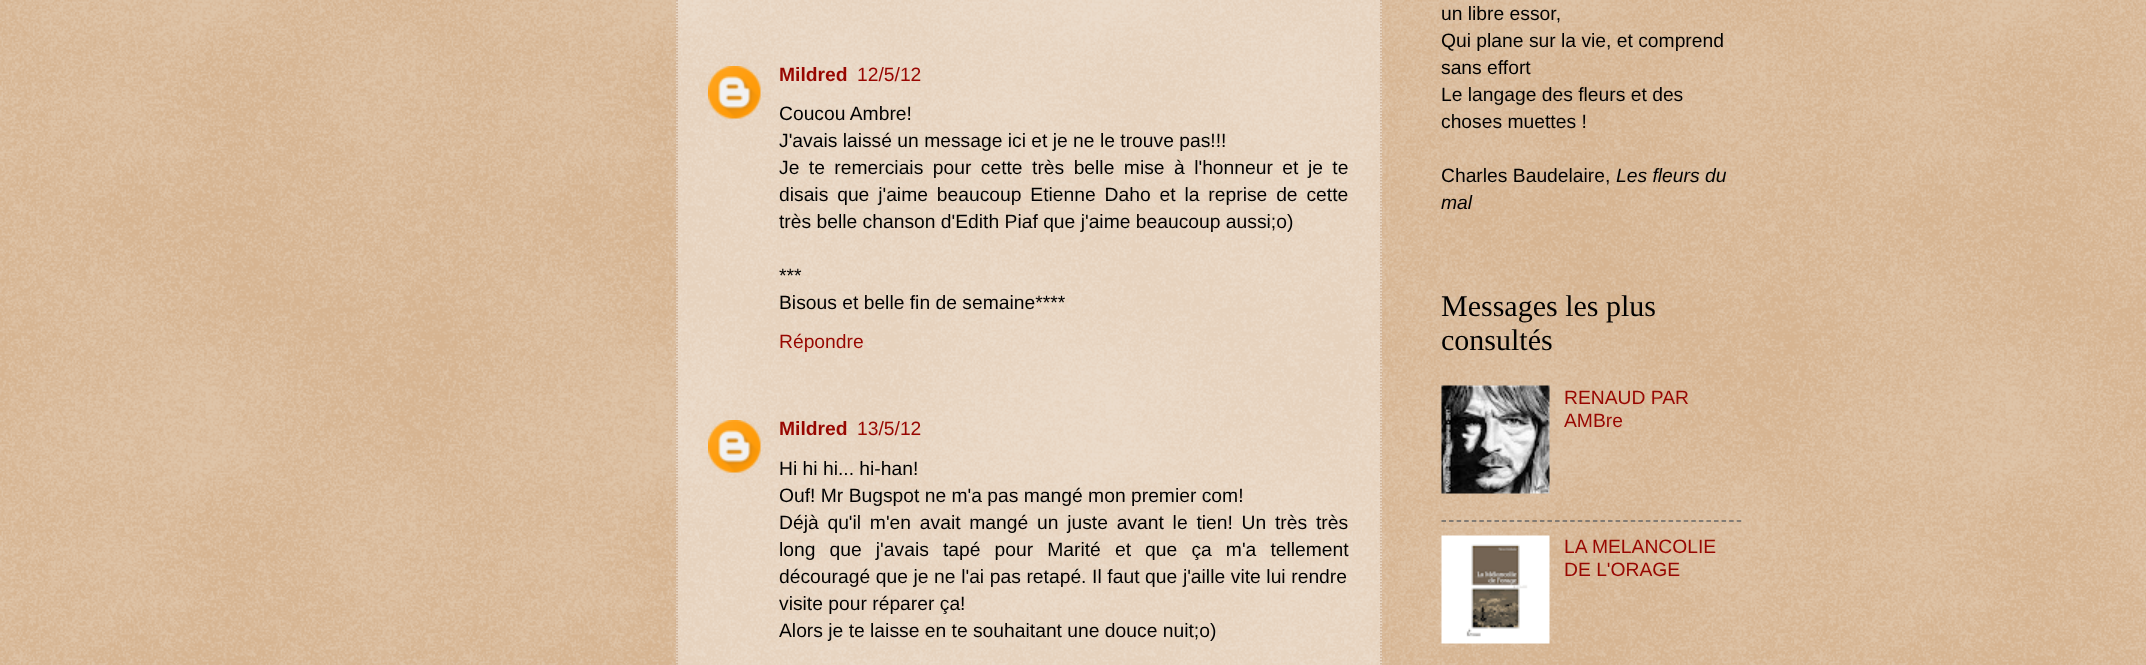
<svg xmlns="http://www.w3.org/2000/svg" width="2146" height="665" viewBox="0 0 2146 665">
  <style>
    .t1 { font: bold 19.3px Liberation Sans; fill: #970600; }
    .t2 { font: 19.3px Liberation Sans; fill: #970600; }
    .t3 { font: 19.3px Liberation Sans; fill: #000; }
    .t4 { font: italic 19.3px Liberation Sans; fill: #000; }
    .t5 { font: 30px Liberation Serif; fill: #000; }
  </style>
  <rect width="100%" height="100%" fill="#b87f43"/>
  <image x="0" y="0" width="2146" height="665" href="images/1.png"/>
  <rect x="676" y="0" width="706" height="665" fill="#ffffff66"/>
  <path d="M1381-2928V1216.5" fill="none" stroke="#c7a98f" stroke-width="1.5" stroke-dasharray="1.5 1.5"/>
  <path d="M677-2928V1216.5" fill="none" stroke="#c7a98f" stroke-width="1.5" stroke-dasharray="1.5 1.5"/>
  <image x="708" y="66" width="53" height="53" href="images/2.png"/>
  <text x="779" y="81" class="t1">Mildred</text>
  <text x="857" y="81" class="t2">12/5/12</text>
  <text x="779" y="120" class="t3">Coucou Ambre!</text>
  <text x="779" y="147" class="t3">J'avais laissé un message ici et je ne le trouve pas!!!</text>
  <text x="779" y="174" word-spacing="4.1" class="t3">Je te remerciais pour cette très belle mise à l'honneur et je te</text>
  <text x="779" y="201" word-spacing="3.5" class="t3">disais que j'aime beaucoup Etienne Daho et la reprise de cette</text>
  <text x="779" y="228" class="t3">très belle chanson d'Edith Piaf que j'aime beaucoup aussi;o)</text>
  <text x="779" y="282" class="t3">***</text>
  <text x="779" y="309" class="t3">Bisous et belle fin de semaine****</text>
  <text x="779" y="348" class="t2">Répondre</text>
  <image x="708" y="420" width="53" height="53" href="images/3.png"/>
  <text x="779" y="435" class="t1">Mildred</text>
  <text x="857" y="435" class="t2">13/5/12</text>
  <text x="779" y="475" class="t3">Hi hi hi... hi-han!</text>
  <text x="779" y="502" class="t3">Ouf! Mr Bugspot ne m'a pas mangé mon premier com!</text>
  <text x="779" y="529" word-spacing="3.4" class="t3">Déjà qu'il m'en avait mangé un juste avant le tien! Un très très</text>
  <text x="779" y="556" word-spacing="8.75" class="t3">long que j'avais tapé pour Marité et que ça m'a tellement</text>
  <text x="779" y="583" word-spacing="0.25" class="t3">découragé que je ne l'ai pas retapé. Il faut que j'aille vite lui rendre</text>
  <text x="779" y="610" class="t3">visite pour réparer ça!</text>
  <text x="779" y="637" class="t3">Alors je te laisse en te souhaitant une douce nuit;o)</text>
  <text x="1441" y="20" class="t3">un libre essor,</text>
  <text x="1441" y="47" class="t3">Qui plane sur la vie, et comprend</text>
  <text x="1441" y="74" class="t3">sans effort</text>
  <text x="1441" y="101" class="t3">Le langage des fleurs et des</text>
  <text x="1441" y="128" class="t3">choses muettes !</text>
  <text x="1441" y="182" class="t3">Charles Baudelaire,</text>
  <text x="1616" y="182" class="t4">Les fleurs du</text>
  <text x="1441" y="209" class="t4">mal</text>
  <text x="1441" y="316" class="t5">Messages les plus</text>
  <text x="1441" y="350" class="t5">consultés</text>
  <image x="1441" y="385" width="109" height="109" href="images/4.png"/>
  <text x="1564" y="404" class="t2">RENAUD PAR</text>
  <text x="1564" y="427" class="t2">AMBre</text>
  <path d="M1441.5 521H1741.5" fill="none" stroke="#656565" stroke-width="1.5" stroke-dasharray="4.5 3.07"/>
  <image x="1441" y="535" width="109" height="109" href="images/5.png"/>
  <text x="1564" y="553" class="t2">LA MELANCOLIE</text>
  <text x="1564" y="576" class="t2">DE L'ORAGE</text>
</svg>
